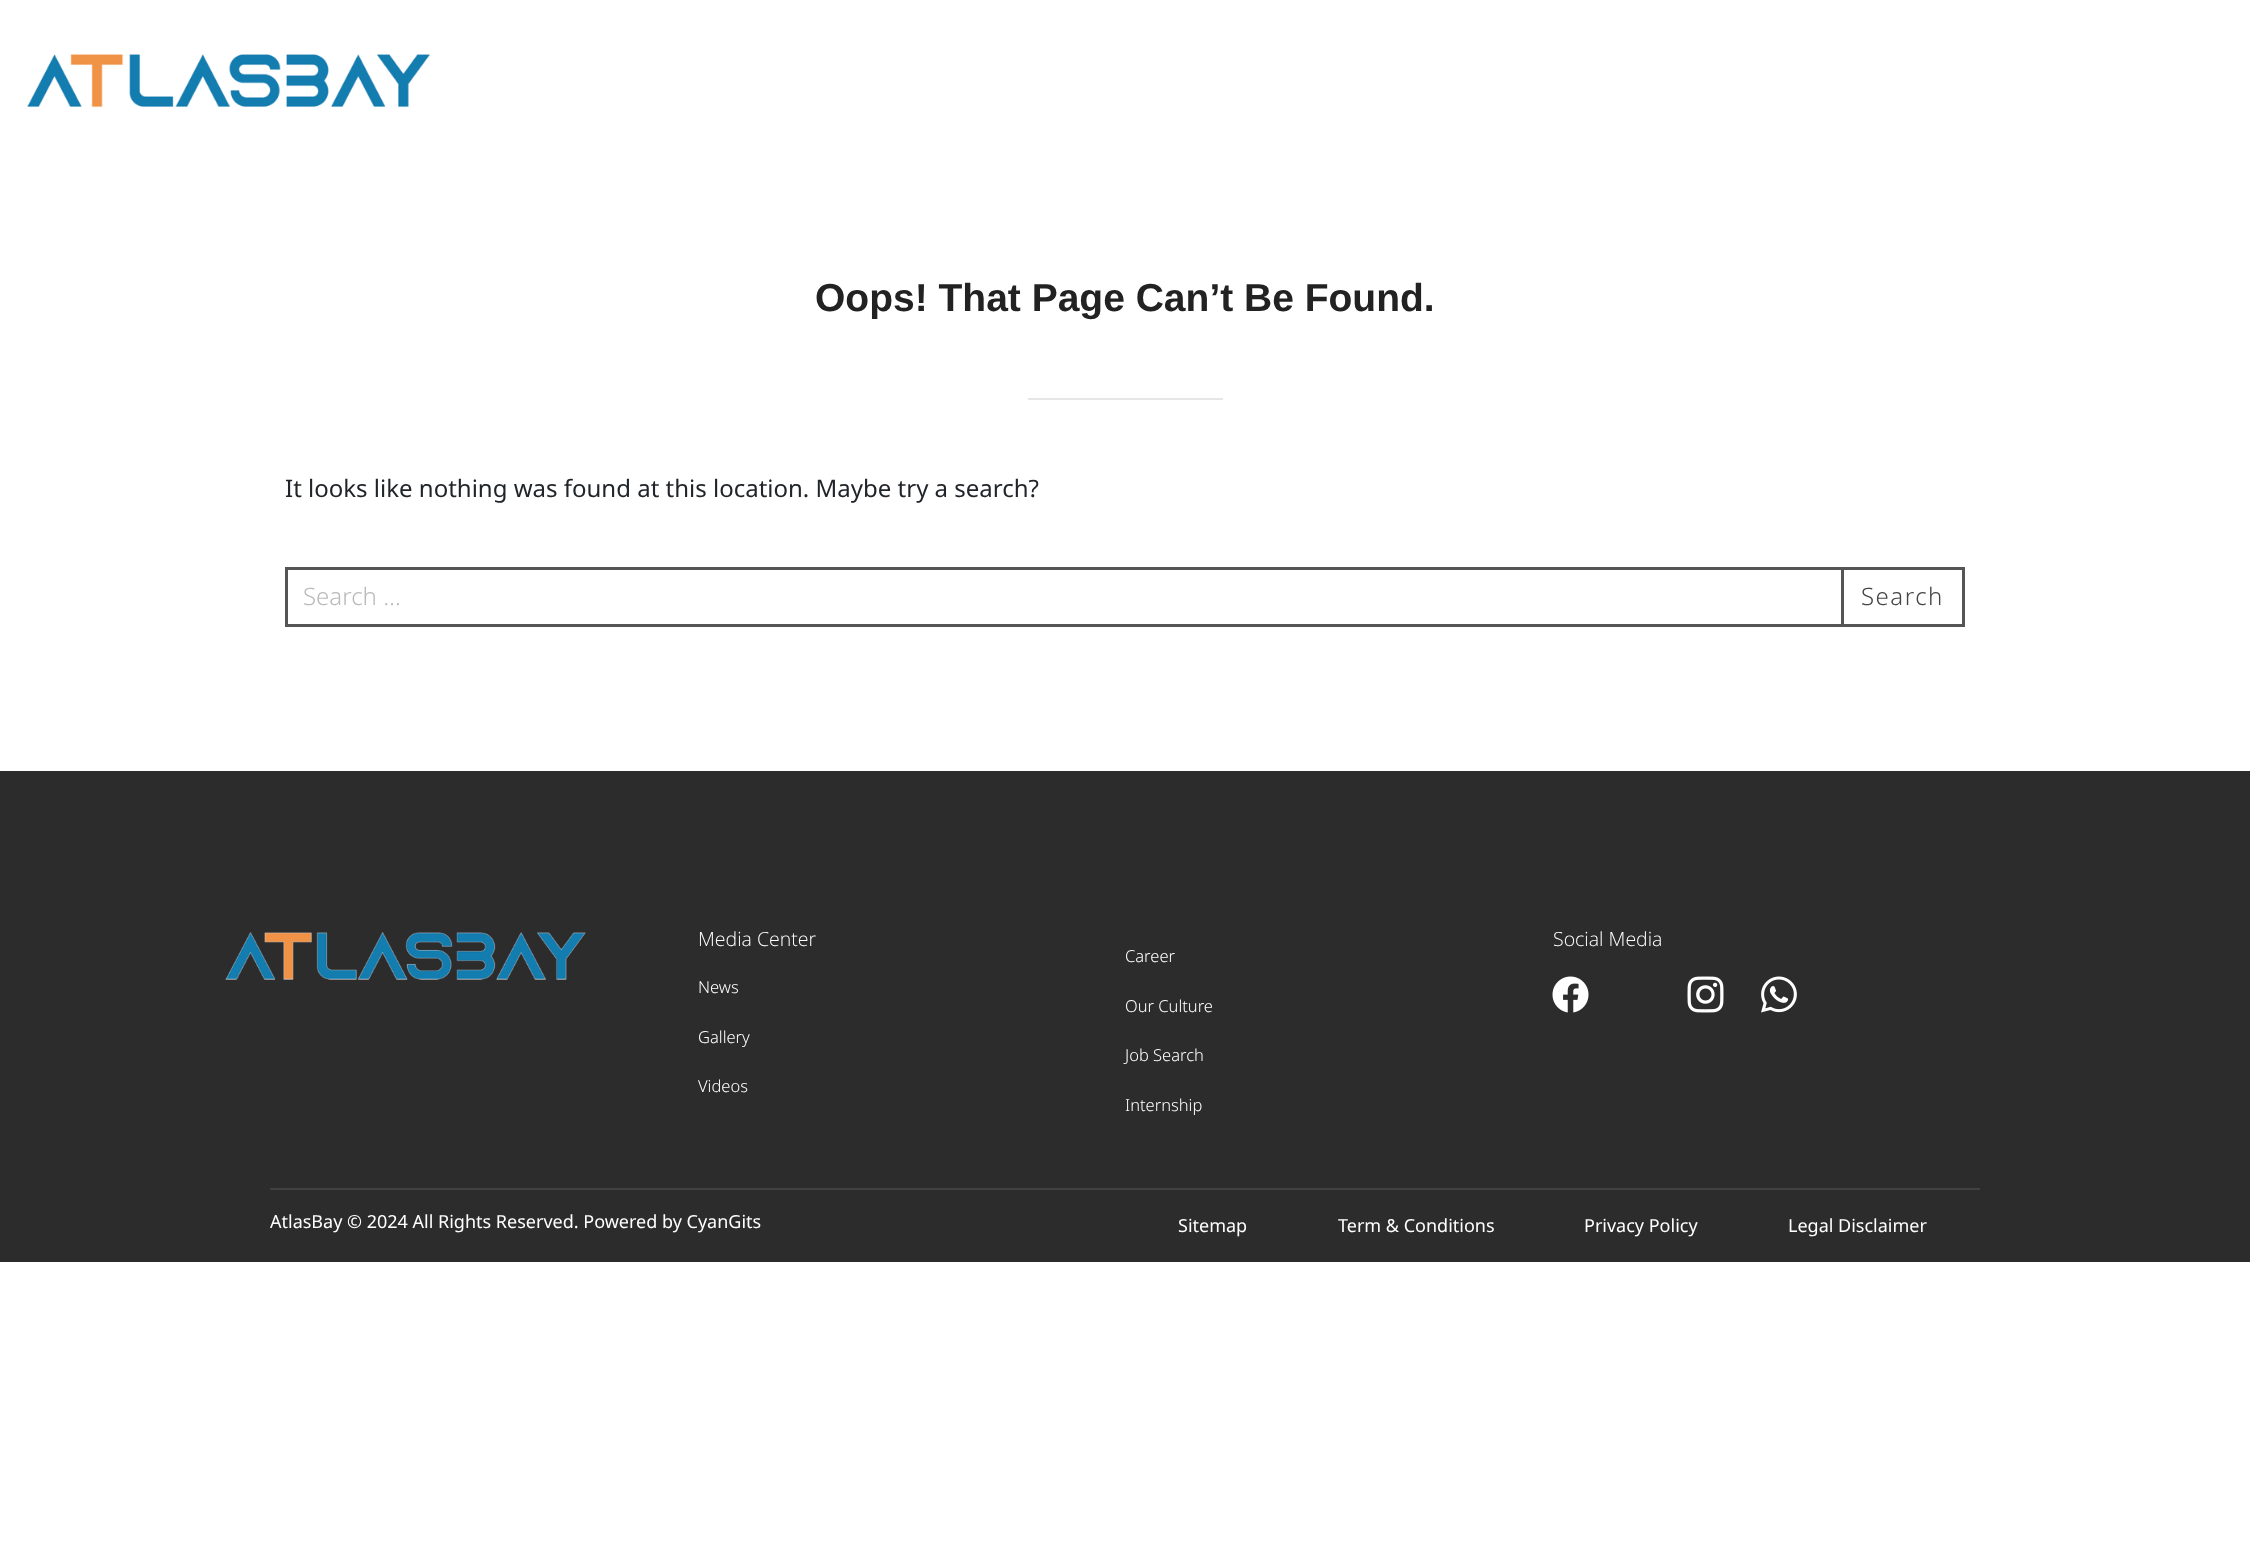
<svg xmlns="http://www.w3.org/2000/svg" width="2250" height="1543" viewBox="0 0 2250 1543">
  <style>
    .t1 { font: bold 39px Liberation Sans; fill: #222; }
    .t2 { font: 24px Noto Sans; fill: #212529; }
    .t3 { font: 300 24px Noto Sans; fill: #bababa; }
    .t4 { font: 300 24px Noto Sans; letter-spacing: 1.5px; fill: #444; }
    .t5 { font: 300 19.5px Open Sans; fill: #fff; }
    .t6 { font: 300 16.5px Noto Sans; fill: #fff; }
    .t7 { font: 18px Noto Sans; fill: #fff; }
  </style>
  <rect width="100%" height="100%" fill="#fff"/>
  <image x="27" y="54" width="403" height="54" href="images/1.png"/>
  <text x="815" y="311" class="t1">Oops! That Page Can’t Be Found.</text>
  <rect x="1028" y="398" width="195" height="2" fill="#e6e6e6"/>
  <text x="285" y="497" class="t2">It looks like nothing was found at this location. Maybe try a search?</text>
  <rect x="286.5" y="568.5" width="1677" height="57" fill="none" stroke="#565555" stroke-width="3"/>
  <text x="303" y="605" class="t3">Search …</text>
  <rect x="1842.5" y="568.5" width="121" height="57" fill="none" stroke="#565555" stroke-width="3"/>
  <text x="1861" y="605" class="t4">Search</text>
  <rect x="0" y="771" width="2250" height="491" fill="#2c2c2c"/>
  <image x="225" y="932" width="361" height="48" href="images/2.png"/>
  <text x="698" y="946" class="t5">Media Center</text>
  <text x="698" y="993" class="t6">News</text>
  <text x="698" y="1043" class="t6">Gallery</text>
  <text x="698" y="1092" class="t6">Videos</text>
  <text x="1125" y="962" class="t6">Career</text>
  <text x="1125" y="1012" class="t6">Our Culture</text>
  <text x="1125" y="1061" class="t6">Job Search</text>
  <text x="1125" y="1111" class="t6">Internship</text>
  <text x="1553" y="946" class="t5">Social Media</text>
  <image x="1552" y="976" width="37" height="37" href="images/3.png"/>
  <image x="1687" y="976" width="37" height="37" href="images/4.png"/>
  <image x="1761" y="976" width="36" height="37" href="images/5.png"/>
  <rect x="270" y="1188" width="1710" height="2" fill="#414141"/>
  <text x="270" y="1228" class="t7">AtlasBay © 2024 All Rights Reserved. Powered by CyanGits</text>
  <text x="1178" y="1232" class="t7">Sitemap</text>
  <text x="1338" y="1232" class="t7">Term &amp; Conditions</text>
  <text x="1584" y="1232" class="t7">Privacy Policy</text>
  <text x="1788" y="1232" class="t7">Legal Disclaimer</text>
</svg>
